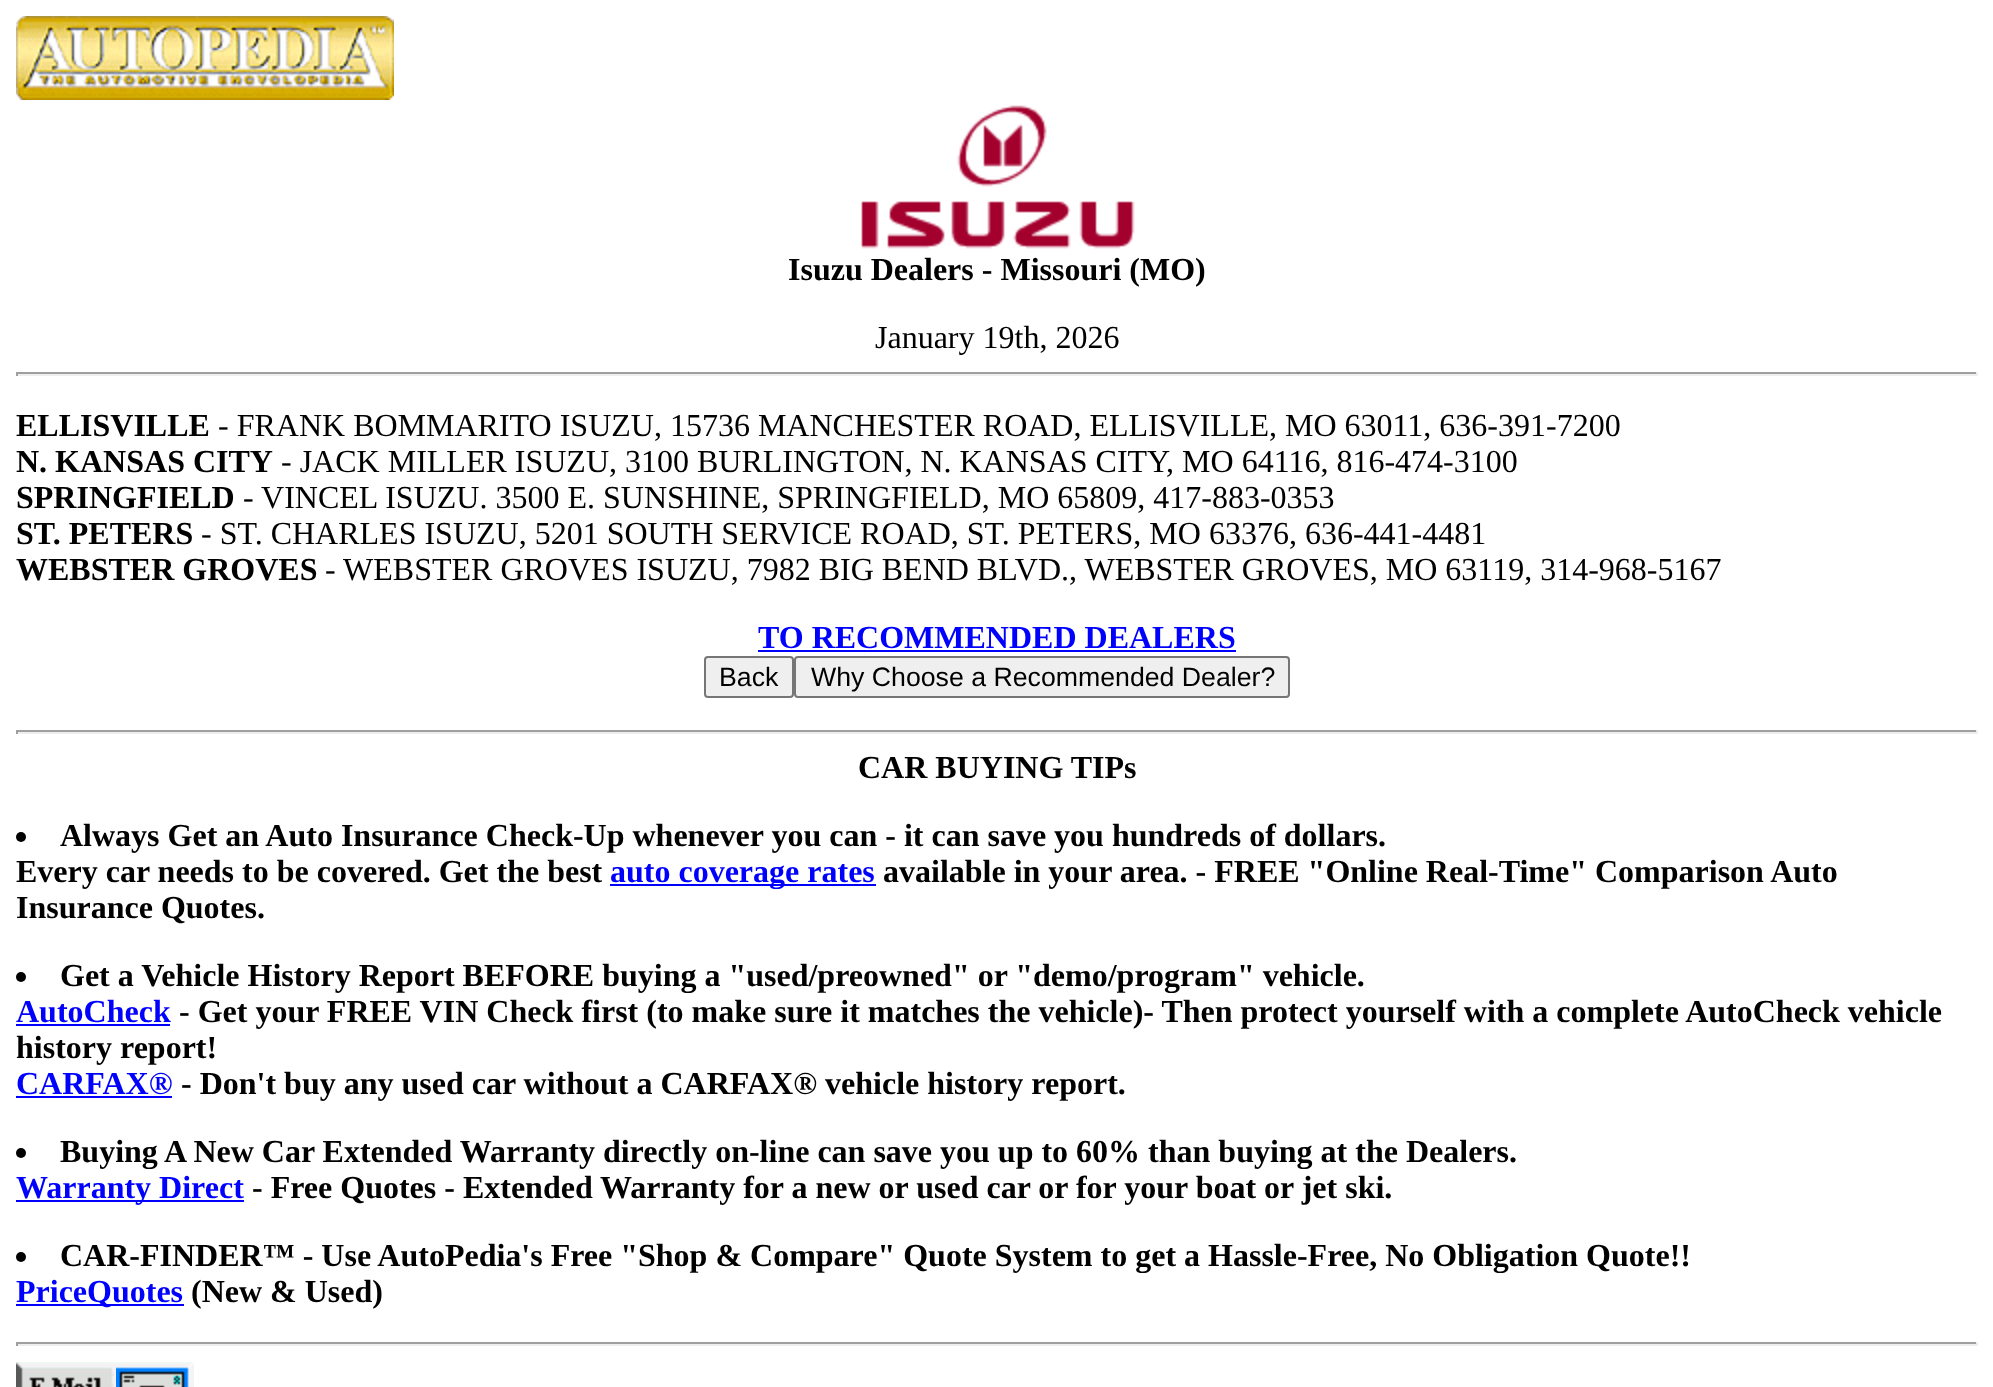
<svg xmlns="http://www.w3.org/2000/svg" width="1993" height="1387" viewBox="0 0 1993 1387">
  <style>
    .t1 { font: bold 32px Liberation Serif; fill: #000; }
    .t2 { font: 32px Liberation Serif; fill: #000; }
    .t3 { font: bold 32px Liberation Serif; fill: #00f; }
    .t4 { font: 26.7px Liberation Sans; fill: #000; }
  </style>
  <rect width="100%" height="100%" fill="#fff"/>
  <image x="16" y="16" width="378" height="84" href="images/1.png"/>
  <image x="861" y="105" width="274" height="144" href="images/2.png"/>
  <text x="788" y="280" class="t1">Isuzu Dealers - Missouri (MO)</text>
  <text x="875" y="348" class="t2">January 19th, 2026</text>
  <rect x="16" y="372" width="1962" height="2" fill="#9f9f9f"/>
  <rect x="1976" y="372" width="2" height="4" fill="#eee"/>
  <rect x="16" y="374" width="1962" height="2" fill="#eee"/>
  <rect x="16" y="372" width="2" height="4" fill="#9f9f9f"/>
  <text x="16" y="436" class="t1">ELLISVILLE</text>
  <text x="218" y="436" class="t2">- FRANK BOMMARITO ISUZU, 15736 MANCHESTER ROAD, ELLISVILLE, MO 63011, 636-391-7200</text>
  <text x="16" y="472" class="t1">N. KANSAS CITY</text>
  <text x="281" y="472" class="t2">- JACK MILLER ISUZU, 3100 BURLINGTON, N. KANSAS CITY, MO 64116, 816-474-3100</text>
  <text x="16" y="508" class="t1">SPRINGFIELD</text>
  <text x="243" y="508" class="t2">- VINCEL ISUZU. 3500 E. SUNSHINE, SPRINGFIELD, MO 65809, 417-883-0353</text>
  <text x="16" y="544" class="t1">ST. PETERS</text>
  <text x="201" y="544" class="t2">- ST. CHARLES ISUZU, 5201 SOUTH SERVICE ROAD, ST. PETERS, MO 63376, 636-441-4481</text>
  <text x="16" y="580" class="t1">WEBSTER GROVES</text>
  <text x="325" y="580" class="t2">- WEBSTER GROVES ISUZU, 7982 BIG BEND BLVD., WEBSTER GROVES, MO 63119, 314-968-5167</text>
  <text x="758" y="648" class="t3">TO RECOMMENDED DEALERS</text>
  <rect x="758" y="650" width="478" height="2" fill="#00f"/>
  <rect x="705" y="657" width="88" height="40" rx="3" fill="#efefef" stroke="#767676" stroke-width="2"/>
  <text x="719" y="686" class="t4">Back</text>
  <rect x="795" y="657" width="494" height="40" rx="3" fill="#efefef" stroke="#767676" stroke-width="2"/>
  <text x="811" y="686" class="t4">Why Choose a Recommended Dealer?</text>
  <rect x="16" y="730" width="1962" height="2" fill="#9f9f9f"/>
  <rect x="1976" y="730" width="2" height="4" fill="#eee"/>
  <rect x="16" y="732" width="1962" height="2" fill="#eee"/>
  <rect x="16" y="730" width="2" height="4" fill="#9f9f9f"/>
  <text x="858" y="778" class="t1">CAR BUYING TIPs</text>
  <circle cx="21" cy="837" r="5" fill="#000"/>
  <text x="60" y="846" class="t1">Always Get an Auto Insurance Check-Up whenever you can - it can save you hundreds of dollars.</text>
  <text x="16" y="882" class="t1">Every car needs to be covered. Get the best</text>
  <rect x="610" y="884" width="266" height="2" fill="#00f"/>
  <text x="610" y="882" class="t3">auto coverage rates</text>
  <text x="883" y="882" class="t1">available in your area. - FREE "Online Real-Time" Comparison Auto</text>
  <text x="16" y="918" class="t1">Insurance Quotes.</text>
  <circle cx="21" cy="977" r="5" fill="#000"/>
  <text x="60" y="986" class="t1">Get a Vehicle History Report BEFORE buying a "used/preowned" or "demo/program" vehicle.</text>
  <text x="16" y="1022" class="t3">AutoCheck</text>
  <rect x="16" y="1024" width="154" height="2" fill="#00f"/>
  <text x="179" y="1022" class="t1">- Get your FREE VIN Check first (to make sure it matches the vehicle)- Then protect yourself with a complete AutoCheck vehicle</text>
  <text x="16" y="1058" class="t1">history report!</text>
  <text x="16" y="1094" class="t3">CARFAX®</text>
  <rect x="16" y="1096" width="156" height="2" fill="#00f"/>
  <text x="181" y="1094" class="t1">- Don't buy any used car without a CARFAX® vehicle history report.</text>
  <circle cx="21" cy="1153" r="5" fill="#000"/>
  <text x="60" y="1162" class="t1">Buying A New Car Extended Warranty directly on-line can save you up to 60% than buying at the Dealers.</text>
  <rect x="16" y="1200" width="228" height="2" fill="#00f"/>
  <text x="16" y="1198" class="t3">Warranty Direct</text>
  <text x="252" y="1198" class="t1">- Free Quotes - Extended Warranty for a new or used car or for your boat or jet ski.</text>
  <text x="60" y="1266" class="t1">CAR-FINDER™ - Use AutoPedia's Free "Shop &amp; Compare" Quote System to get a Hassle-Free, No Obligation Quote!!</text>
  <rect x="16" y="1304" width="168" height="2" fill="#00f"/>
  <text x="16" y="1302" class="t3">PriceQuotes</text>
  <text x="191" y="1302" class="t1">(New &amp; Used)</text>
  <rect x="16" y="1342" width="1962" height="2" fill="#9f9f9f"/>
  <rect x="1976" y="1342" width="2" height="4" fill="#eee"/>
  <rect x="16" y="1344" width="1962" height="2" fill="#eee"/>
  <rect x="16" y="1342" width="2" height="4" fill="#9f9f9f"/>
  <image x="16" y="1362" width="100" height="25" href="images/3.png"/>
  <image x="116" y="1362" width="78" height="25" href="images/4.png"/>
  <circle cx="21" cy="1257" r="5" fill="#000"/>
</svg>
